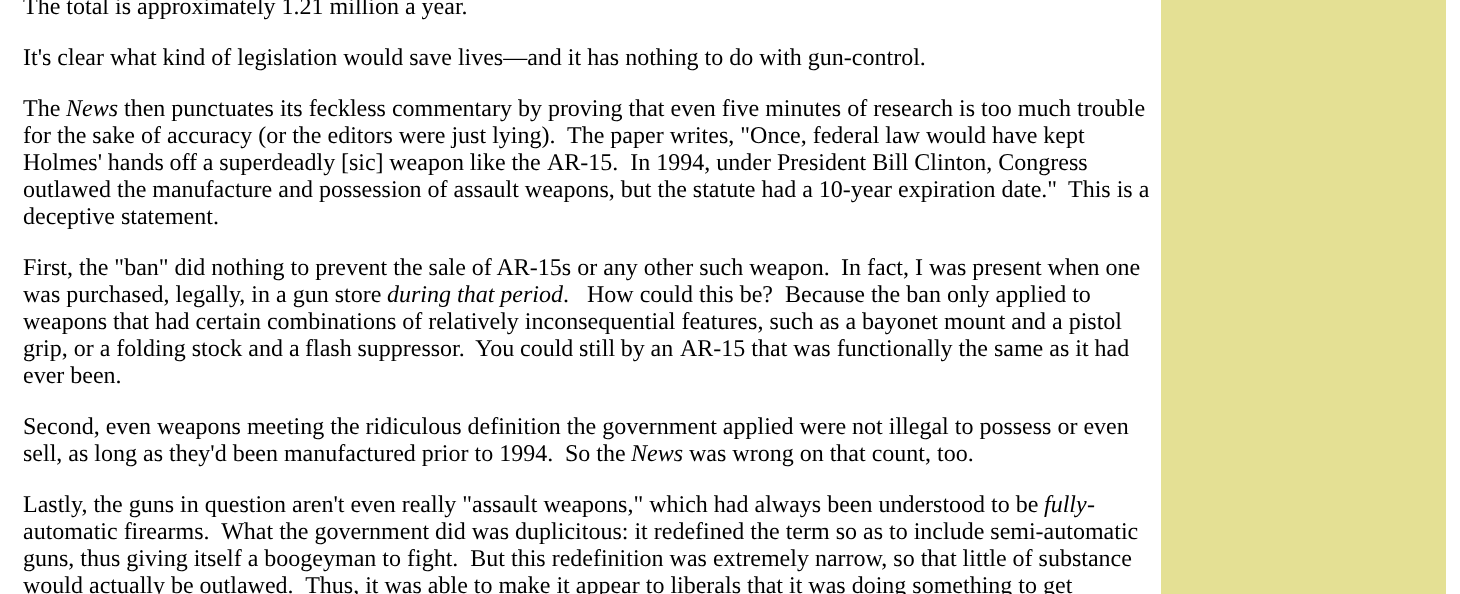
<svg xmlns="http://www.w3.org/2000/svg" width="1460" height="594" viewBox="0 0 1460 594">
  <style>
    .t1 { font: 24px Liberation Serif; fill: #000; }
    .t2 { font: italic 24px Liberation Serif; fill: #000; }
  </style>
  <rect width="100%" height="100%" fill="#fff"/>
  <text x="23" y="14" class="t1">The total is approximately 1.21 million a year.</text>
  <text x="23" y="65" class="t1">It's clear what kind of legislation would save lives—and it has nothing to do with gun-control.</text>
  <text x="23" y="116" class="t1">The</text>
  <text x="66" y="116" class="t2">News</text>
  <text x="124" y="116" class="t1">then punctuates its feckless commentary by proving that even five minutes of research is too much trouble</text>
  <text x="23" y="143" class="t1" xml:space="preserve">for the sake of accuracy (or the editors were just lying).  The paper writes, "Once, federal law would have kept</text>
  <text x="23" y="170" word-spacing="-0.25" class="t1">Holmes' hands off a superdeadly [sic] weapon like the</text>
  <text x="547" y="170" class="t1" xml:space="preserve">AR-15.  In 1994, under President Bill Clinton, Congress</text>
  <text x="23" y="197" class="t1">outlawed the manufacture and possession of assault weapons, but the statute had a 10-year expiration date."</text>
  <text x="1068" y="197" class="t1">This is a</text>
  <text x="23" y="224" class="t1">deceptive statement.</text>
  <text x="23" y="275" class="t1">First, the "ban" did nothing to prevent the sale of AR-15s or any other such weapon.</text>
  <text x="841" y="275" class="t1">In fact, I was present when one</text>
  <text x="23" y="302" class="t1">was purchased, legally, in a gun store</text>
  <text x="387" y="302" class="t2">during that period</text>
  <text x="563" y="302" class="t1" xml:space="preserve">.   How could this be?  Because the ban only applied to</text>
  <text x="23" y="329" class="t1">weapons that had certain combinations of relatively inconsequential features, such as a bayonet mount and a pistol</text>
  <text x="23" y="356" class="t1">grip, or a folding stock and a</text>
  <text x="305" y="356" word-spacing="-0.25" class="t1" xml:space="preserve">flash suppressor.  You could still by an</text>
  <text x="680" y="356" class="t1">AR-15 that was functionally the same as it had</text>
  <text x="23" y="383" class="t1">ever been.</text>
  <text x="23" y="434" class="t1">Second, even weapons meeting the ridiculous definition the government applied were not illegal to possess or even</text>
  <text x="23" y="461" class="t1">sell, as long as they'd been manufactured prior to 1994.</text>
  <text x="565" y="461" class="t1">So the</text>
  <text x="631" y="461" class="t2">News</text>
  <text x="689" y="461" class="t1">was wrong on that count, too.</text>
  <text x="23" y="512" class="t1">Lastly, the guns in question aren't even really "assault weapons," which had always been understood to be</text>
  <text x="1044" y="512" class="t2">fully</text>
  <text x="1087" y="512" class="t1">-</text>
  <text x="23" y="539" class="t1" xml:space="preserve">automatic firearms.  What the government did was duplicitous: it redefined the term so as to include semi-automatic</text>
  <text x="23" y="566" class="t1" xml:space="preserve">guns, thus giving itself a boogeyman to fight.  But this redefinition was extremely narrow, so that little of substance</text>
  <text x="23" y="593" class="t1" xml:space="preserve">would actually be outlawed.  Thus, it was able to make it appear to liberals that it was doing something to get</text>
  <rect x="1161" y="0" width="285" height="594" fill="#e4e094"/>
</svg>
